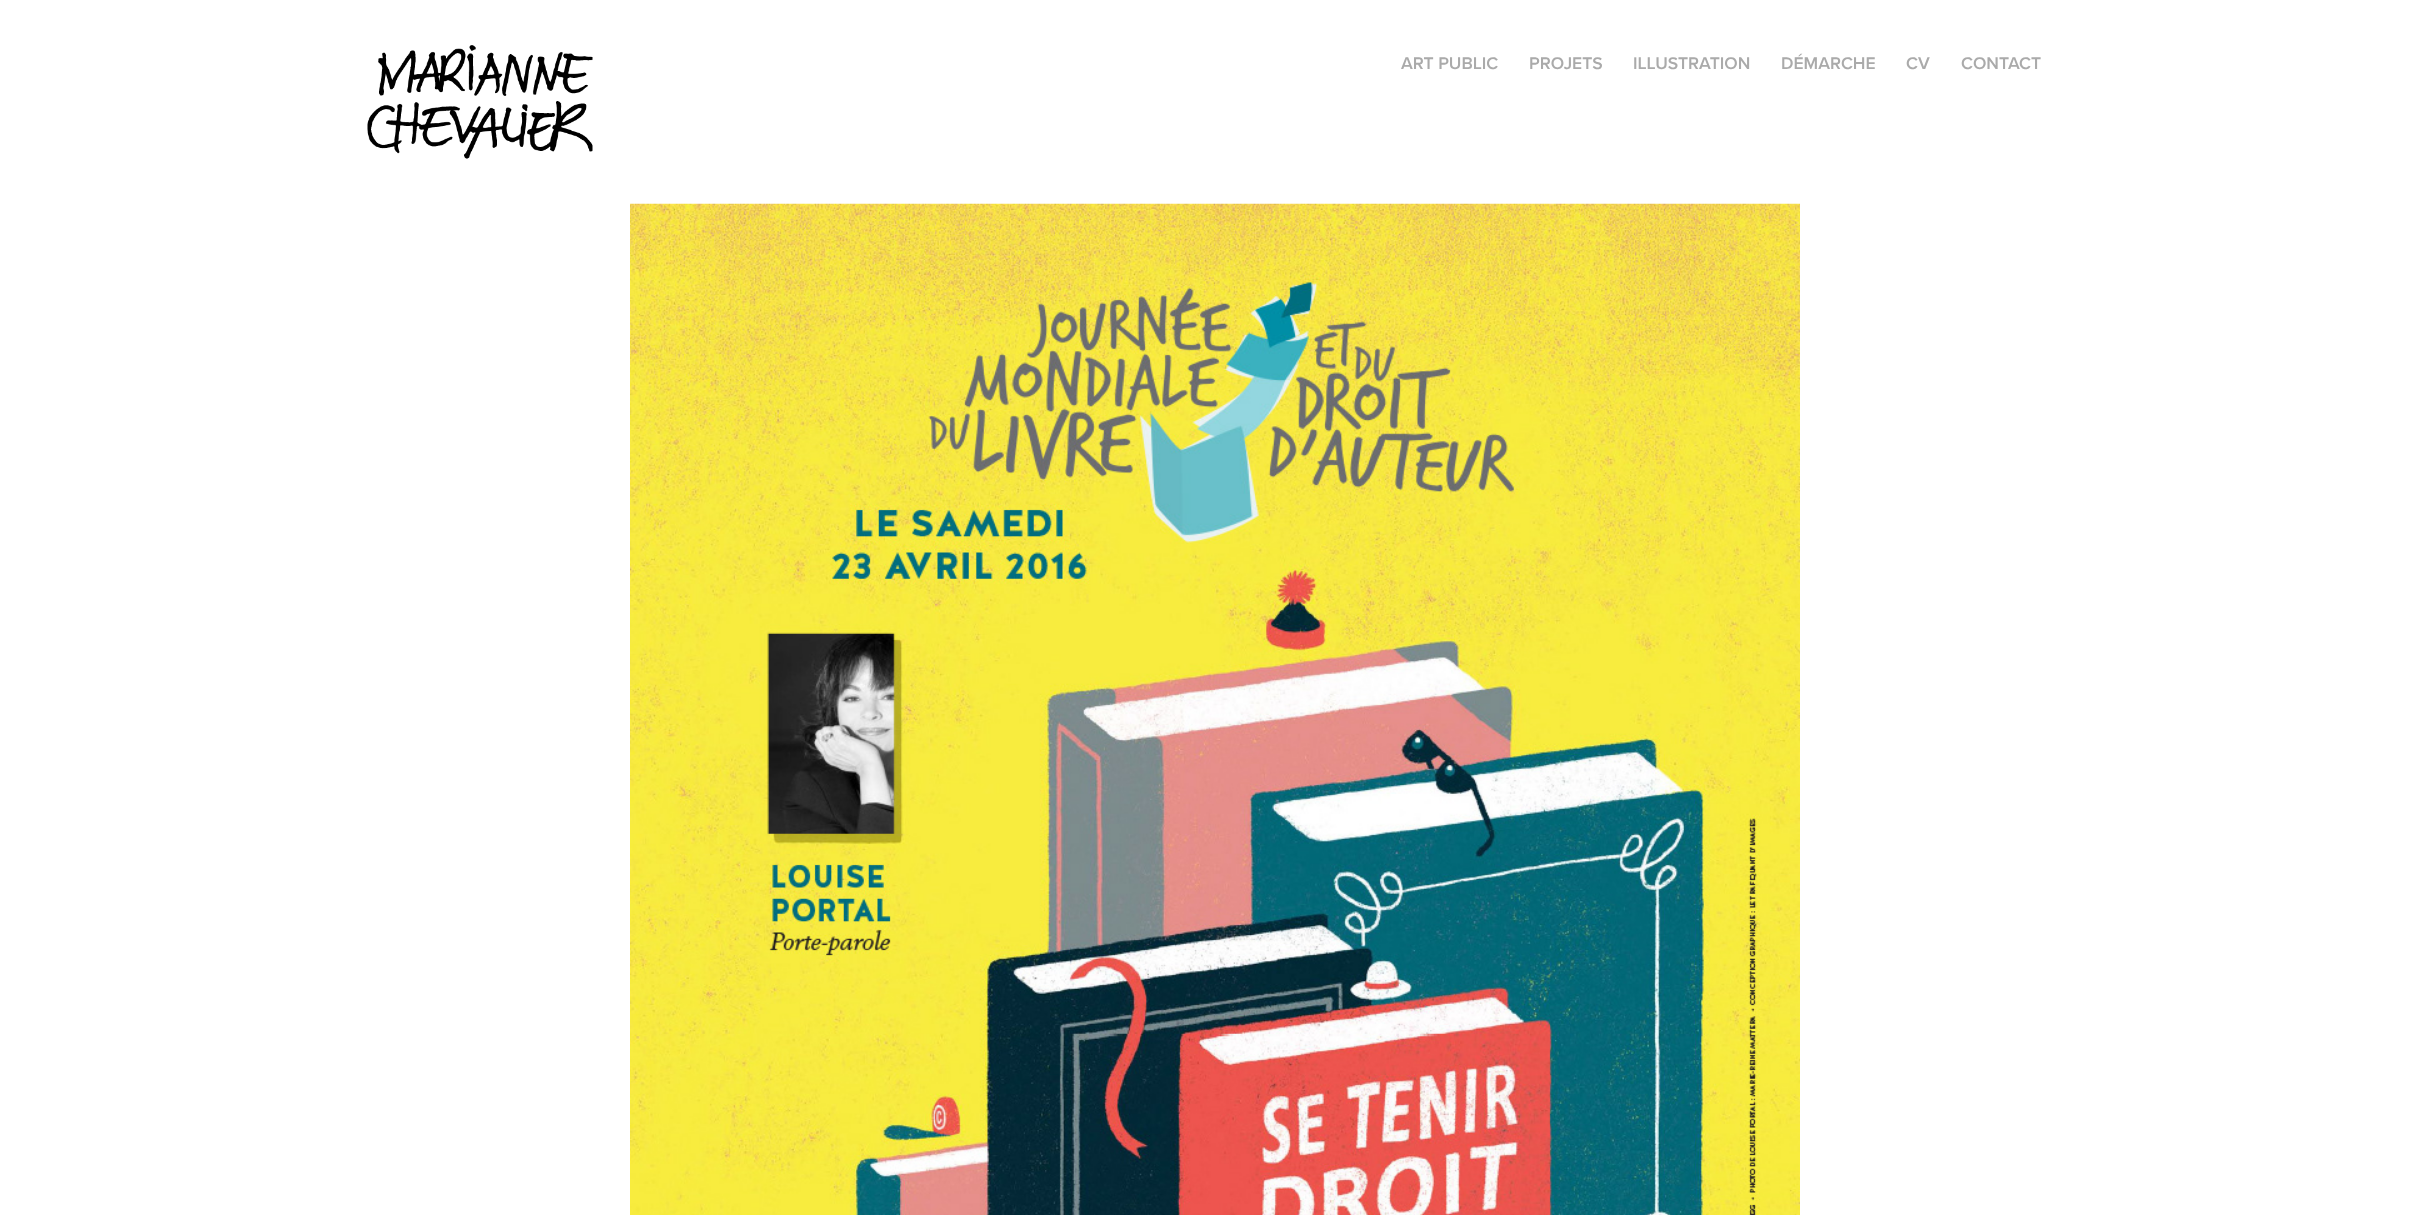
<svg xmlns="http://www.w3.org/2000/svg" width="2431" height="1215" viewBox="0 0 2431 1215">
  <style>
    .t1 { font: 600 17.5px Proxima Nova; fill: #aaa; }
  </style>
  <rect width="100%" height="100%" fill="#fff"/>
  <image x="367" y="45" width="226" height="114" href="images/1.png"/>
  <text x="1401" y="69" class="t1">ART PUBLIC</text>
  <text x="1529" y="69" class="t1">PROJETS</text>
  <text x="1633" y="69" class="t1">ILLUSTRATION</text>
  <text x="1781" y="69" class="t1">DÉMARCHE</text>
  <text x="1906" y="69" class="t1">CV</text>
  <text x="1961" y="69" class="t1">CONTACT</text>
  <image x="630" y="203" width="1170" height="1012" href="images/2.png"/>
</svg>
